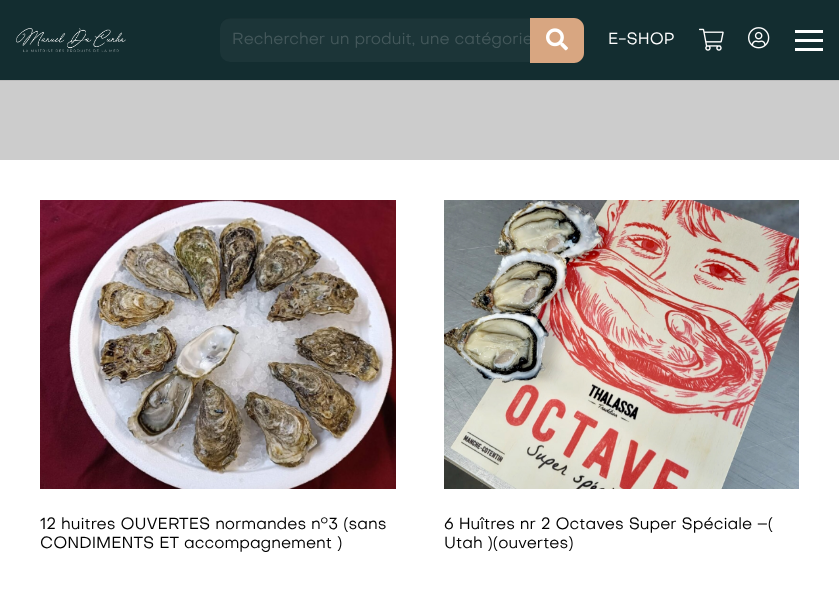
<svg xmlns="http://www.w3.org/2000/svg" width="839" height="606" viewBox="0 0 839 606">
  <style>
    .t1 { font: 16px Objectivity; fill: #44585b; }
    .t2 { font: 16px Objectivity; fill: #fff; }
    .t3 { font: 16px Objectivity; fill: #000; }
  </style>
  <rect width="100%" height="100%" fill="#fff"/>
  <rect x="0" y="80" width="839" height="1" fill="#bcbcbc"/>
  <rect x="0" y="0" width="839" height="80" fill="#132d30"/>
  <image x="16" y="28" width="110" height="24" href="images/1.png"/>
  <rect x="220" y="18" width="364" height="44" rx="10" fill="#1c3538"/>
  <path d="M230 19H574C580 19 584 23 584 29C584 23 580 18 574 18H228C223 19 220 24 220 29C220 23 224 19 230 19Z" fill="#00000014"/>
  <text x="232" y="44" class="t1">Rechercher un produit, une catégorie</text>
  <path d="M530 18H574C579.5 18 584 22.5 584 28V53C584 58.5 579.5 63 574 63H530Z" fill="#d8a681"/>
  <image x="546" y="28" width="22" height="23" href="images/2.png"/>
  <text x="608" y="44" class="t2">E-SHOP</text>
  <image x="699" y="28" width="25" height="23" href="images/3.png"/>
  <image x="748" y="27" width="22" height="22" href="images/4.png"/>
  <rect x="795" y="39" width="28" height="3" fill="#fff"/>
  <rect x="795" y="30" width="28" height="3" fill="#fff"/>
  <rect x="795" y="48" width="28" height="3" fill="#fff"/>
  <rect x="0" y="81" width="839" height="79" fill="#ccc"/>
  <image x="40" y="200" width="356" height="289" href="images/5.png"/>
  <text x="40" y="529" class="t3">12 huitres OUVERTES normandes n°3 (sans</text>
  <text x="40" y="548" class="t3">CONDIMENTS ET accompagnement )</text>
  <image x="444" y="200" width="355" height="289" href="images/6.png"/>
  <text x="444" y="529" class="t3">6 Huîtres nr 2 Octaves Super Spéciale –(</text>
  <text x="444" y="548" class="t3">Utah )(ouvertes)</text>
</svg>
